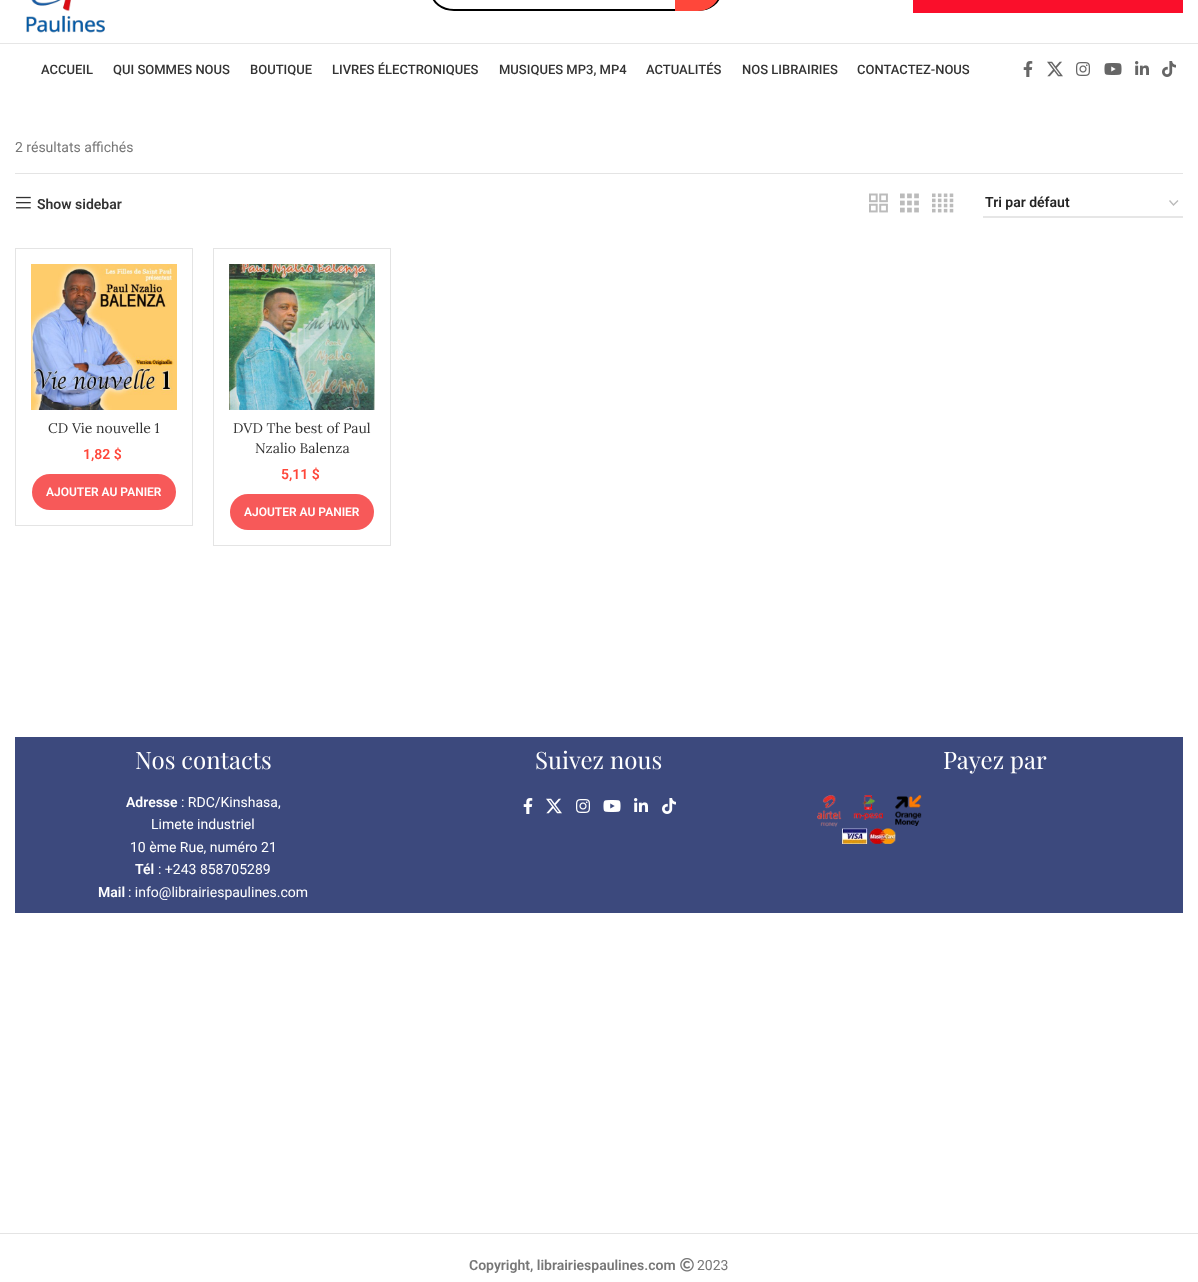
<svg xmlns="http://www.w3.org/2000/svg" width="1198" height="1282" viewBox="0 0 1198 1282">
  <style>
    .t1 { font: 500 13px Roboto; fill: #333; }
    .t2 { font: 14px Roboto; fill: #777; }
    .t3 { font: 600 14px Roboto; fill: #333; }
    .t4 { font: 600 14px Roboto; fill: #242424; }
    .t5 { font: 14px Lora; fill: #333; }
    .t6 { font: 600 14px Roboto; fill: #ff473a; }
    .t7 { font: 600 12px Roboto; fill: #fff; }
    .t8 { font: 24px Playfair Display; fill: #fff; }
    .t9 { font: 600 14px Roboto; fill: #fff; }
    .t10 { font: 14px Roboto; fill: #fff; }
    .t11 { font: 600 14px Roboto; fill: #777; }
  </style>
  <rect width="100%" height="100%" fill="#fff"/>
  <rect x="0" y="43" width="1198" height="1" fill="#e6e6e6"/>
  <rect x="432" y="-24" width="288" height="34" rx="22" fill="none" stroke="#000" stroke-width="2"/>
  <path d="M675-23H698C710.5-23 721-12.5 721 0V-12C721 .5 710.5 11 698 11H675Z" fill="#ff473a"/>
  <image x="26" y="0" width="79" height="33" href="images/1.png"/>
  <rect x="913" y="0" width="270" height="13" fill="#fa0f2b"/>
  <text x="41" y="74" class="t1">ACCUEIL</text>
  <text x="113" y="74" class="t1">QUI SOMMES NOUS</text>
  <text x="250" y="74" class="t1">BOUTIQUE</text>
  <text x="332" y="74" class="t1">LIVRES ÉLECTRONIQUES</text>
  <text x="499" y="74" class="t1">MUSIQUES MP3, MP4</text>
  <text x="646" y="74" class="t1">ACTUALITÉS</text>
  <text x="742" y="74" class="t1">NOS LIBRAIRIES</text>
  <text x="857" y="74" class="t1">CONTACTEZ-NOUS</text>
  <image x="1023" y="61" width="10" height="16" href="images/2.png"/>
  <image x="1047" y="61" width="16" height="16" href="images/3.png"/>
  <image x="1076" y="62" width="14" height="14" href="images/4.png"/>
  <image x="1104" y="63" width="18" height="12" href="images/5.png"/>
  <image x="1135" y="61" width="14" height="14" href="images/6.png"/>
  <image x="1162" y="61" width="14" height="16" href="images/7.png"/>
  <rect x="15" y="173" width="1168" height="1" fill="#e4e4e4"/>
  <text x="15" y="152" class="t2">2 résultats affichés</text>
  <image x="16" y="196" width="15" height="13" href="images/8.png"/>
  <text x="37" y="209" class="t3">Show sidebar</text>
  <image x="869" y="193" width="19" height="20" href="images/9.png"/>
  <image x="900" y="193" width="19" height="20" href="images/10.png"/>
  <image x="932" y="193" width="22" height="20" href="images/11.png"/>
  <path d="M1169.5 200.5L1173.5 205L1178 200.5" fill="none" stroke="#bbb" stroke-width="1.4"/>
  <rect x="983" y="216" width="200" height="2" fill="#e6e6e6"/>
  <text x="985" y="207" class="t4">Tri par défaut</text>
  <rect x="15.5" y="248.5" width="177" height="277" fill="none" stroke="#e4e4e4"/>
  <image x="31" y="264" width="146" height="146" href="images/12.png"/>
  <text x="48" y="433" class="t5">CD Vie nouvelle 1</text>
  <text x="83" y="459" class="t6">1,82 $</text>
  <rect x="32" y="474" width="144" height="36" rx="18" fill="#f75959"/>
  <text x="46" y="496" class="t7">AJOUTER AU PANIER</text>
  <rect x="213.5" y="248.5" width="177" height="297" fill="none" stroke="#e4e4e4"/>
  <image x="229" y="264" width="146" height="146" href="images/13.png"/>
  <text x="233" y="433" class="t5">DVD The best of Paul</text>
  <text x="255" y="453" class="t5">Nzalio Balenza</text>
  <text x="281" y="479" class="t6">5,11 $</text>
  <rect x="230" y="494" width="144" height="36" rx="18" fill="#f75959"/>
  <text x="244" y="516" class="t7">AJOUTER AU PANIER</text>
  <rect x="15" y="737" width="1168" height="176" fill="#3c497d"/>
  <text x="135" y="769" class="t8">Nos contacts</text>
  <text x="126" y="807" class="t9">Adresse</text>
  <text x="181" y="807" class="t10">: RDC/Kinshasa,</text>
  <text x="151" y="829" class="t10">Limete industriel</text>
  <text x="130" y="852" class="t10">10 ème Rue, numéro 21</text>
  <text x="135" y="874" class="t9">Tél</text>
  <text x="158" y="874" class="t10">: +243 858705289</text>
  <text x="98" y="897" class="t9">Mail</text>
  <text x="128" y="897" class="t10">: info@librairiespaulines.com</text>
  <text x="535" y="769" class="t8">Suivez nous</text>
  <image x="523" y="798" width="10" height="16" href="images/14.png"/>
  <image x="546" y="798" width="16" height="16" href="images/15.png"/>
  <image x="576" y="799" width="14" height="14" href="images/16.png"/>
  <image x="603" y="800" width="18" height="12" href="images/17.png"/>
  <image x="634" y="798" width="14" height="14" href="images/18.png"/>
  <image x="662" y="798" width="14" height="16" href="images/19.png"/>
  <text x="943" y="769" class="t8">Payez par</text>
  <image x="817" y="795" width="105" height="49" href="images/20.png"/>
  <rect x="0" y="1233" width="1198" height="1" fill="#e4e4e4"/>
  <text x="469" y="1270" class="t11">Copyright, librairiespaulines.com</text>
  <image x="680" y="1258" width="14" height="14" href="images/21.png"/>
  <text x="697" y="1270" class="t2">2023</text>
</svg>
